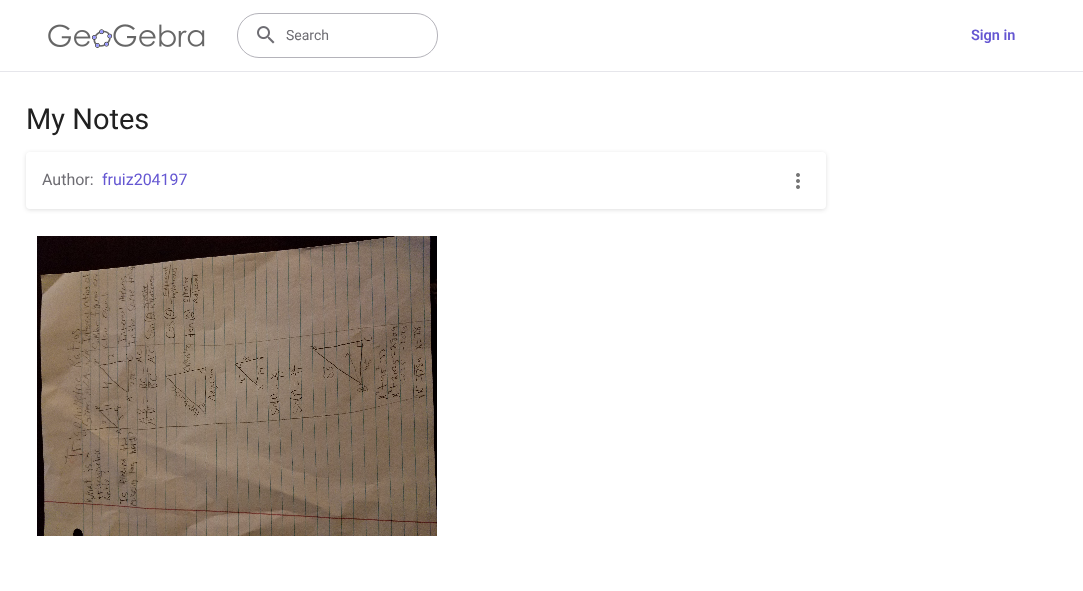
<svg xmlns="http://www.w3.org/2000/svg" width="1083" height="591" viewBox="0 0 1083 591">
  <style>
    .t1 { font: 14px Roboto; fill: #6e6d73; }
    .t2 { font: 600 14.5px Roboto; fill: #6557d2; }
    .t3 { font: 29px Roboto; fill: #212121; }
    .t4 { font: 16px Roboto; fill: #6e6d73; }
    .t5 { font: 16px Roboto; fill: #6557d2; }
  </style>
  <rect width="100%" height="100%" fill="#fff"/>
  <rect x="0" y="71" width="1083" height="1" fill="#e6e6eb"/>
  <image x="48" y="24" width="157" height="24" href="images/1.png"/>
  <rect x="237.5" y="13.5" width="200" height="44" rx="21.5" fill="none" stroke="#b4b3ba"/>
  <image x="257" y="26" width="18" height="18" href="images/2.png"/>
  <text x="286" y="40" class="t1">Search</text>
  <text x="971" y="40" class="t2">Sign in</text>
  <text x="26" y="129" class="t3">My Notes</text>
  <rect x="26" y="153" width="800" height="57" rx="4" fill="#1c1c1f24" filter="blur(2px)"/>
  <rect x="26" y="152" width="800" height="57" rx="4" fill="#fff"/>
  <text x="42" y="185" class="t4">Author:</text>
  <text x="102" y="185" class="t5">fruiz204197</text>
  <image x="796" y="173" width="4" height="16" href="images/3.png"/>
  <image x="37" y="236" width="400" height="300" href="images/4.png"/>
</svg>
